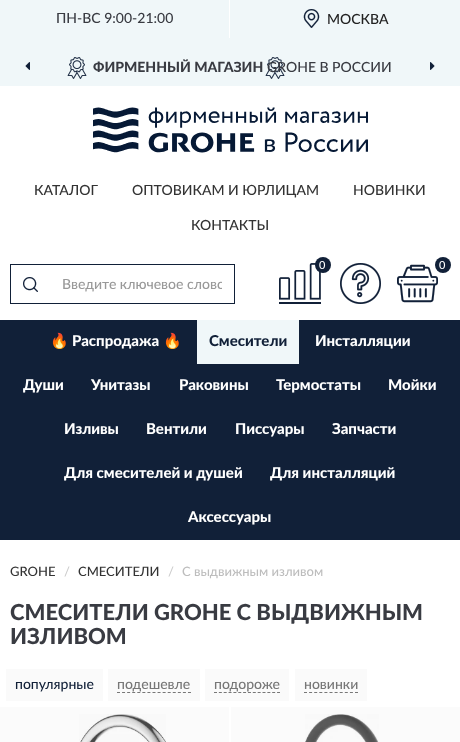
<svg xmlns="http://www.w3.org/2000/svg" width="460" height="742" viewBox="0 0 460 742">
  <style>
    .t1 { font: 500 14px Lato; fill: #393b42; }
    .t2 { font: 500 14px Lato; fill: #222; }
    .t3 { font: 900 14px Lato; fill: #393b42; }
    .t4 { font: 500 14px Lato; fill: #333; }
    .t5 { font: 500 11px Lato; fill: #fff; }
    .t6 { font: 500 14px Lato; fill: #999; }
    .t7 { font: 15px Noto Color Emoji; fill: #fff; }
    .t8 { font: 900 15px Lato; fill: #fff; }
    .t9 { font: 900 15px Lato; fill: #112038; }
    .t10 { font: 500 13px Lato; fill: #333; }
    .t11 { font: 500 13px Lato; fill: #ccc; }
    .t12 { font: 500 13px Lato; fill: #bdbdbd; }
    .t13 { font: 900 22px Lato; fill: #393b42; }
    .t14 { font: 500 14px Lato; fill: #112038; }
    .t15 { font: 500 14px Lato; fill: #777; }
  </style>
  <defs>
    <clipPath id="clip1"><rect x="62" y="277" width="160" height="17"/></clipPath>
  </defs>
  <rect width="100%" height="100%" fill="#fff"/>
  <rect x="0" y="0" width="460" height="86" fill="#f0f7f9"/>
  <rect x="229" y="0" width="1" height="38" fill="#fff"/>
  <text x="56" y="23" class="t1">ПН-ВС 9:00-21:00</text>
  <image x="303" y="9" width="17" height="19" href="images/1.png"/>
  <text x="327" y="24" class="t2">МОСКВА</text>
  <image x="67" y="57" width="218" height="22" href="images/2.png"/>
  <text x="93" y="72" class="t3">ФИРМЕННЫЙ МАГАЗИН</text>
  <text x="267" y="72" class="t1">GROHE В РОССИИ</text>
  <image x="25" y="62" width="5" height="8" href="images/3.png"/>
  <image x="430" y="62" width="5" height="8" href="images/4.png"/>
  <image x="93" y="107" width="275" height="46" href="images/5.png"/>
  <text x="34" y="195" class="t4">КАТАЛОГ</text>
  <text x="132" y="195" class="t4">ОПТОВИКАМ И ЮРЛИЦАМ</text>
  <text x="353" y="195" class="t4">НОВИНКИ</text>
  <text x="191" y="230" class="t4">КОНТАКТЫ</text>
  <image x="279" y="263" width="42" height="41" href="images/6.png"/>
  <circle cx="323" cy="265" r="8" fill="#112038"/>
  <text x="319" y="269" class="t5">0</text>
  <image x="340" y="263" width="41" height="41" href="images/7.png"/>
  <image x="397" y="264" width="41" height="39" href="images/8.png"/>
  <circle cx="443" cy="265" r="8" fill="#112038"/>
  <text x="439" y="269" class="t5">0</text>
  <image x="23" y="277" width="15" height="15" href="images/9.png"/>
  <rect x="10" y="264" width="225" height="1" fill="#112038"/>
  <rect x="10" y="303" width="40" height="1" fill="#112038"/>
  <rect x="10" y="264" width="1" height="40" fill="#112038"/>
  <rect x="234" y="264" width="1" height="40" fill="#112038"/>
  <rect x="50" y="303" width="185" height="1" fill="#112038"/>
  <g clip-path="url(#clip1)">
    <text x="62" y="289" class="t6">Введите ключевое слово</text>
  </g>
  <rect x="0" y="320" width="460" height="220" fill="#112038"/>
  <text x="50" y="346" class="t7">🔥</text>
  <text x="72" y="346" class="t8">Распродажа</text>
  <text x="163" y="346" class="t7">🔥</text>
  <rect x="197" y="320" width="102" height="44" fill="#f0f7f9"/>
  <text x="209" y="346" class="t9">Смесители</text>
  <text x="315" y="346" class="t8">Инсталляции</text>
  <text x="23" y="390" class="t8">Души</text>
  <text x="91" y="390" class="t8">Унитазы</text>
  <text x="179" y="390" class="t8">Раковины</text>
  <text x="276" y="390" class="t8">Термостаты</text>
  <text x="388" y="390" class="t8">Мойки</text>
  <text x="64" y="434" class="t8">Изливы</text>
  <text x="146" y="434" class="t8">Вентили</text>
  <text x="235" y="434" class="t8">Писсуары</text>
  <text x="332" y="434" class="t8">Запчасти</text>
  <text x="64" y="478" class="t8">Для смесителей и душей</text>
  <text x="270" y="478" class="t8">Для инсталляций</text>
  <text x="188" y="522" class="t8">Аксессуары</text>
  <text x="10" y="576" class="t10">GROHE</text>
  <text x="64" y="576" class="t11">/</text>
  <text x="78" y="576" class="t10">СМЕСИТЕЛИ</text>
  <text x="168" y="576" class="t11">/</text>
  <text x="182" y="576" class="t12">С выдвижным изливом</text>
  <text x="10" y="620" class="t13">СМЕСИТЕЛИ GROHE С ВЫДВИЖНЫМ</text>
  <text x="10" y="644" class="t13">ИЗЛИВОМ</text>
  <rect x="6" y="669" width="97" height="32" fill="#fafafa"/>
  <text x="15" y="689" class="t14">популярные</text>
  <rect x="108" y="669" width="92" height="32" fill="#fafafa"/>
  <text x="117" y="689" class="t15">подешевле</text>
  <path d="M117 692.5H191" fill="none" stroke="#777" stroke-dasharray="3 2.07"/>
  <rect x="205" y="669" width="84" height="32" fill="#fafafa"/>
  <text x="214" y="689" class="t15">подороже</text>
  <path d="M214 692.5H280" fill="none" stroke="#777" stroke-dasharray="3 1.85"/>
  <rect x="295" y="669" width="72" height="32" fill="#fafafa"/>
  <text x="304" y="689" class="t15">новинки</text>
  <path d="M304 692.5H358" fill="none" stroke="#777" stroke-dasharray="3 2.1"/>
  <rect x="0" y="707" width="229" height="35" fill="#fbfbfb"/>
  <image x="79" y="714" width="87" height="28" href="images/10.png"/>
  <rect x="231" y="707" width="229" height="35" fill="#fbfbfb"/>
  <image x="305" y="714" width="74" height="28" href="images/11.png"/>
</svg>
